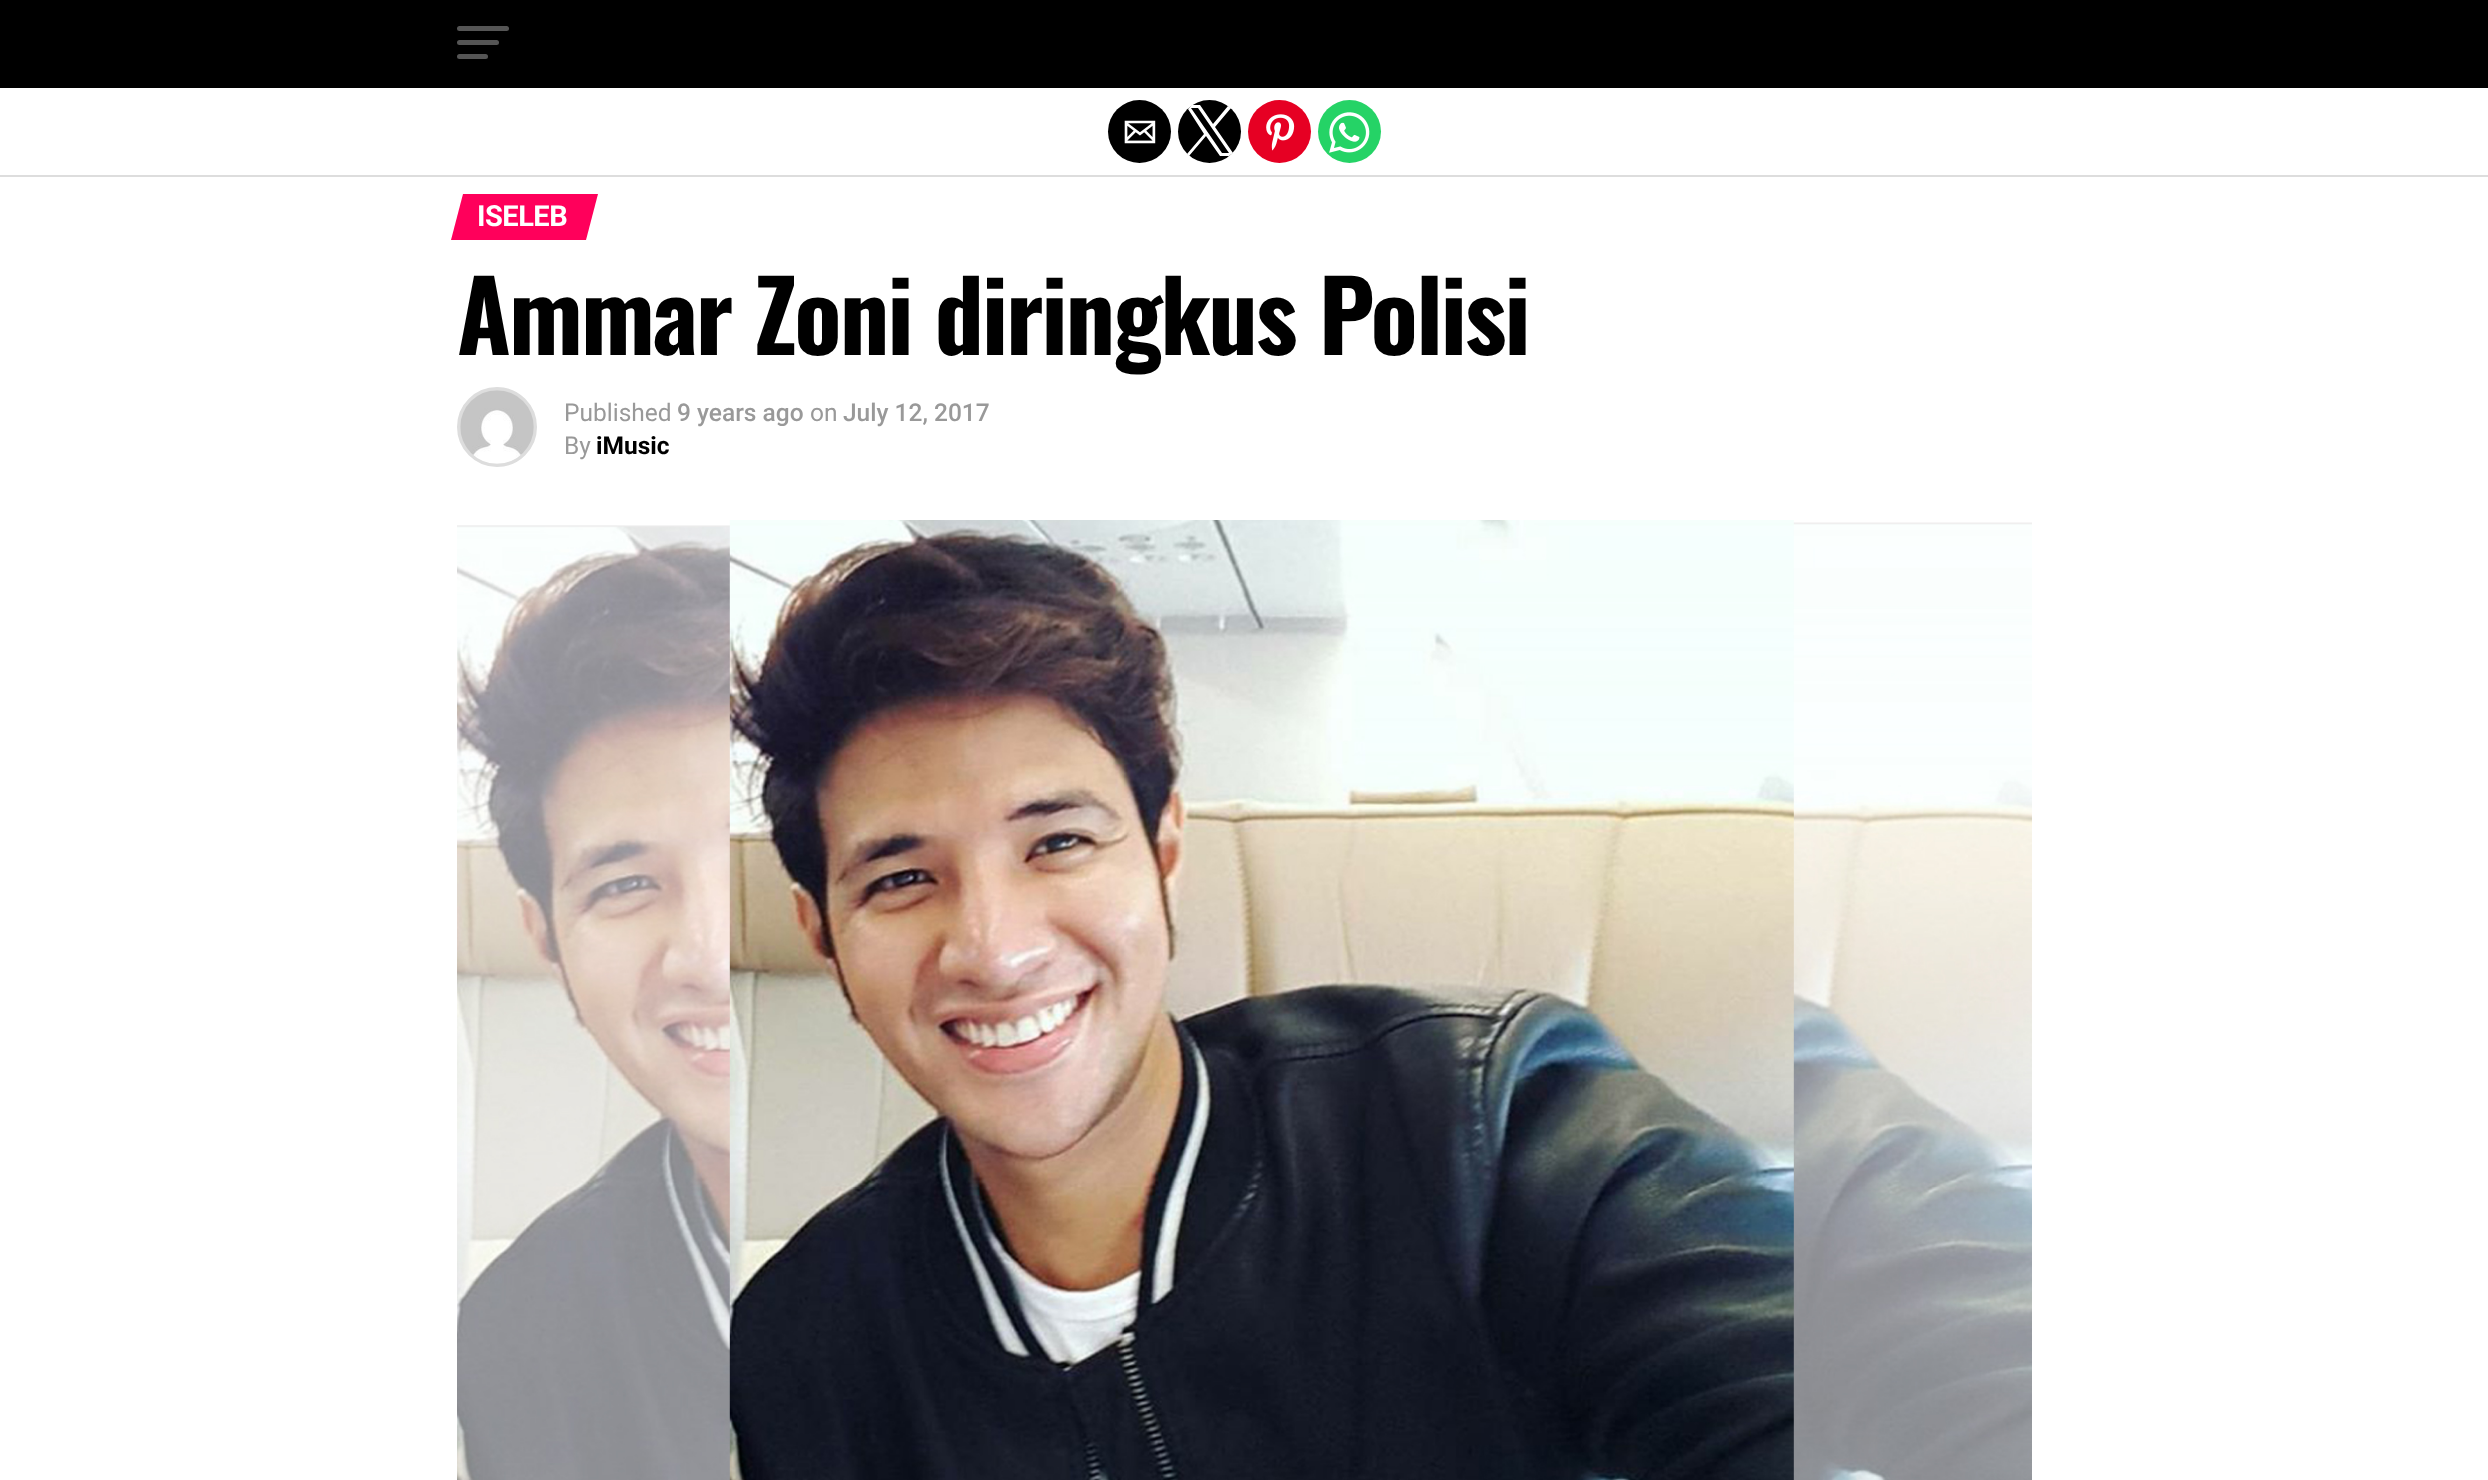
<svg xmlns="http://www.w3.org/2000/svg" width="2488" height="1480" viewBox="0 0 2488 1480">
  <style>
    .t1 { font: bold 29px Roboto; letter-spacing: -0.5px; fill: #fff; }
    .t2 { font: bold 98px Oswald; letter-spacing: -1.95px; fill: #000; }
    .t3 { font: 24.5px Roboto; fill: #999; }
    .t4 { font: 500 24.5px Roboto; fill: #999; }
    .t5 { font: bold 24.5px Roboto; fill: #000; }
  </style>
  <rect width="100%" height="100%" fill="#fff"/>
  <rect x="0" y="0" width="2488" height="88" fill="#000"/>
  <rect x="457" y="26" width="52" height="5" rx="2.5" fill="#555"/>
  <rect x="457" y="40" width="42" height="5" rx="2.5" fill="#555"/>
  <rect x="457" y="54" width="31" height="5" rx="2.5" fill="#555"/>
  <rect x="0" y="175" width="2488" height="2" fill="#ddd"/>
  <circle cx="1139.5" cy="131.5" r="31.5" fill="#000"/>
  <image x="1124" y="120" width="32" height="24" href="images/1.png"/>
  <circle cx="1209.5" cy="131.5" r="31.5" fill="#000"/>
  <path d="M1215 127L1233 153L1229 156H1220L1206 136L1189 156L1187 154L1204 134L1188 109L1192 105H1200L1213 124L1228 106L1231 108ZM1209 134L1222 153H1229L1198 108H1191Z" fill="#fff" fill-rule="evenodd"/>
  <circle cx="1279.5" cy="131.5" r="31.5" fill="#e60023"/>
  <image x="1266" y="114" width="29" height="37" href="images/2.png"/>
  <circle cx="1349.5" cy="131.5" r="31.5" fill="#25d366"/>
  <image x="1329" y="112" width="41" height="41" href="images/3.png"/>
  <path d="M463 194H598L586 240H451Z" fill="#ff005b"/>
  <text x="477" y="226" class="t1">ISELEB</text>
  <text x="457" y="355" class="t2">Ammar Zoni diringkus Polisi</text>
  <circle cx="497" cy="427" r="38" fill="none" stroke="#ddd" stroke-width="4"/>
  <image x="460" y="390" width="74" height="74" href="images/4.png"/>
  <text x="564" y="421" class="t3">Published</text>
  <text x="677" y="421" class="t4">9 years ago</text>
  <text x="810" y="421" class="t3">on</text>
  <text x="843" y="421" class="t4">July 12, 2017</text>
  <text x="564" y="454" class="t3">By</text>
  <text x="596" y="454" class="t5">iMusic</text>
  <image x="457" y="520" width="1575" height="960" href="images/5.png"/>
</svg>
